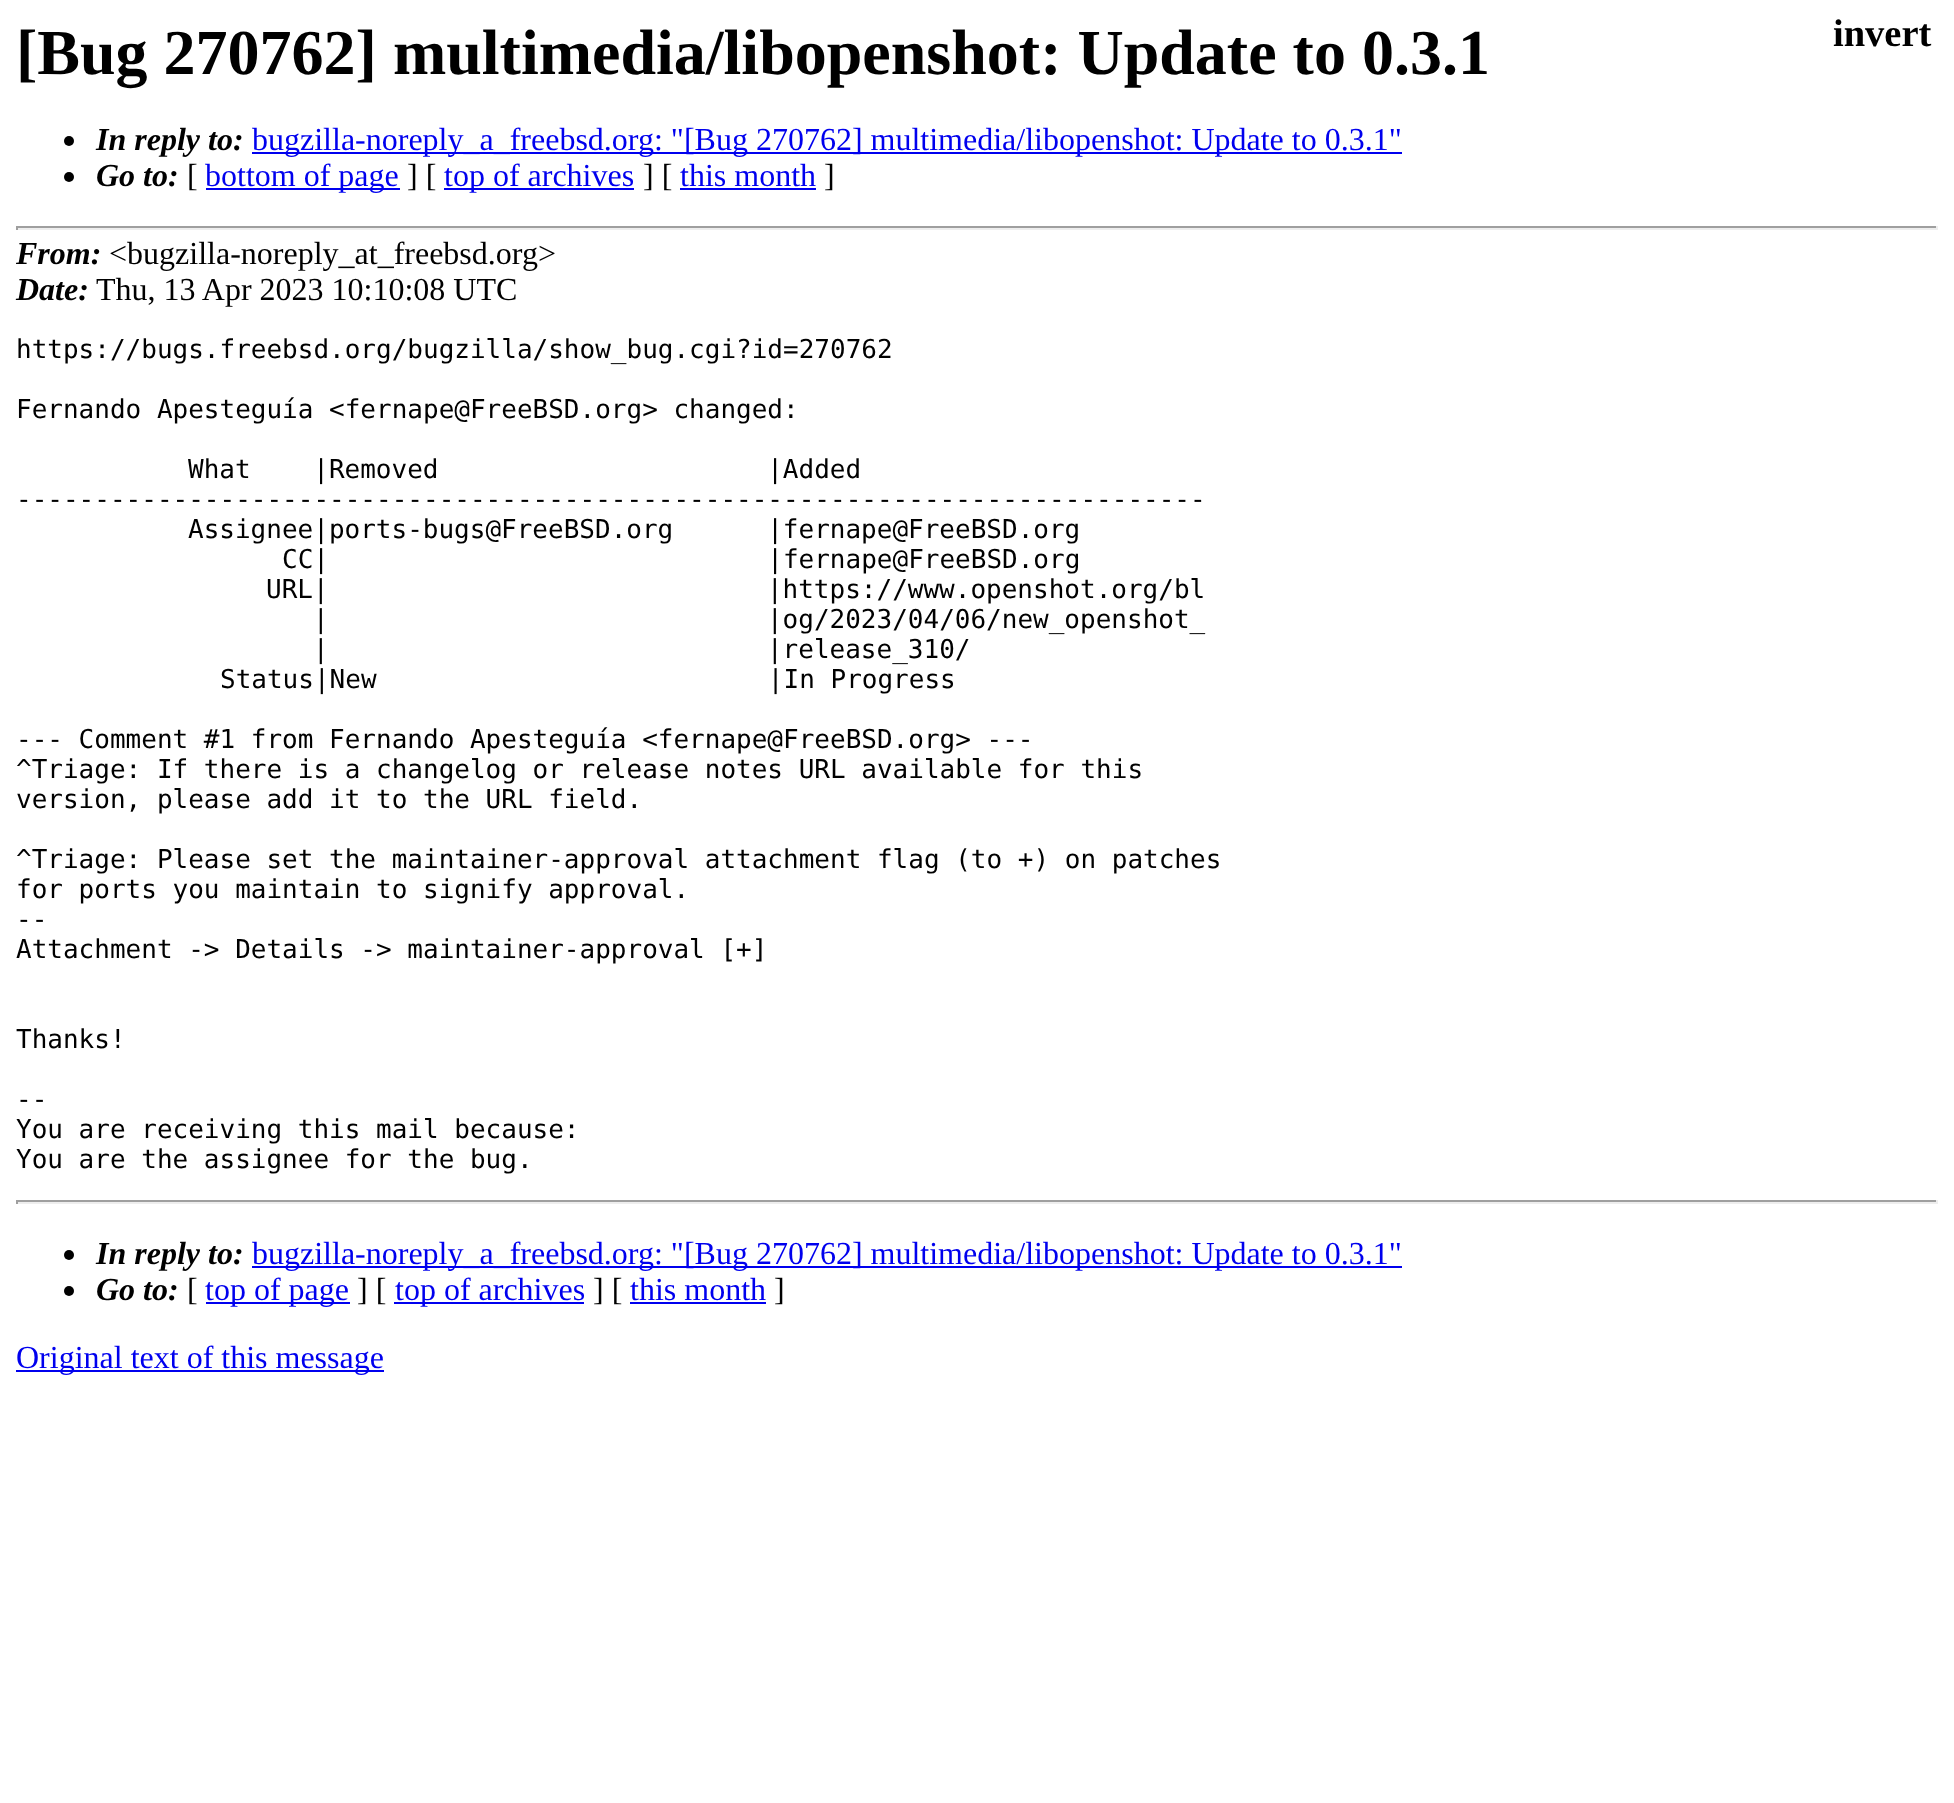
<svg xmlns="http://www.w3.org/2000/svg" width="1954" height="1803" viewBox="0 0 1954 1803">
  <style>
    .t1 { font: bold 64px Liberation Serif; fill: #000; }
    .t2 { font: italic bold 32px Liberation Serif; fill: #000; }
    .t3 { font: 32px Liberation Serif; fill: #00e; }
    .t4 { font: 32px Liberation Serif; fill: #000; }
    .t5 { font: bold 38.5px Liberation Serif; fill: #000; }
    .t6 { font: 26px DejaVu Sans Mono; fill: #000; }
  </style>
  <rect width="100%" height="100%" fill="#fff"/>
  <text x="16" y="74" class="t1">[Bug 270762] multimedia/libopenshot: Update to 0.3.1</text>
  <circle cx="69" cy="141" r="5" fill="#000"/>
  <text x="96" y="150" class="t2">In reply to:</text>
  <rect x="252" y="152" width="1150" height="2" fill="#00e"/>
  <text x="252" y="150" class="t3">bugzilla-noreply_a_freebsd.org: "[Bug 270762] multimedia/libopenshot: Update to 0.3.1"</text>
  <circle cx="69" cy="177" r="5" fill="#000"/>
  <text x="96" y="186" class="t2">Go to:</text>
  <text x="187" y="186" class="t4">[</text>
  <rect x="206" y="188" width="194" height="2" fill="#00e"/>
  <text x="205" y="186" class="t3">bottom of page</text>
  <text x="407" y="186" class="t4">] [</text>
  <rect x="444" y="188" width="190" height="2" fill="#00e"/>
  <text x="444" y="186" class="t3">top of archives</text>
  <text x="643" y="186" class="t4">] [</text>
  <text x="680" y="186" class="t3">this month</text>
  <rect x="680" y="188" width="136" height="2" fill="#00e"/>
  <text x="824" y="186" class="t4">]</text>
  <rect x="16" y="226" width="1922" height="2" fill="#9f9f9f"/>
  <rect x="1936" y="226" width="2" height="4" fill="#eee"/>
  <rect x="16" y="228" width="1922" height="2" fill="#eee"/>
  <rect x="16" y="226" width="2" height="4" fill="#9f9f9f"/>
  <text x="1833" y="46" class="t5">invert</text>
  <text x="16" y="264" class="t2">From:</text>
  <text x="109" y="264" class="t4">&lt;bugzilla-noreply_at_freebsd.org&gt;</text>
  <text x="16" y="300" class="t2">Date:</text>
  <text x="96" y="300" class="t4">Thu, 13 Apr 2023 10:10:08 UTC</text>
  <text x="16" y="358" class="t6">https://bugs.freebsd.org/bugzilla/show_bug.cgi?id=270762</text>
  <text x="16" y="418" class="t6">Fernando Apesteguía &lt;fernape@FreeBSD.org&gt; changed:</text>
  <text x="188" y="478" class="t6" xml:space="preserve">What    |Removed                     |Added</text>
  <text x="16" y="508" class="t6">----------------------------------------------------------------------------</text>
  <text x="188" y="538" class="t6" xml:space="preserve">Assignee|ports-bugs@FreeBSD.org      |fernape@FreeBSD.org</text>
  <text x="282" y="568" class="t6" xml:space="preserve">CC|                            |fernape@FreeBSD.org</text>
  <text x="266" y="598" class="t6" xml:space="preserve">URL|                            |https://www.openshot.org/bl</text>
  <text x="313" y="628" class="t6" xml:space="preserve">|                            |og/2023/04/06/new_openshot_</text>
  <text x="313" y="658" class="t6" xml:space="preserve">|                            |release_310/</text>
  <text x="220" y="688" class="t6" xml:space="preserve">Status|New                         |In Progress</text>
  <text x="16" y="748" class="t6">--- Comment #1 from Fernando Apesteguía &lt;fernape@FreeBSD.org&gt; ---</text>
  <text x="16" y="778" class="t6">^Triage: If there is a changelog or release notes URL available for this</text>
  <text x="16" y="808" class="t6">version, please add it to the URL field.</text>
  <text x="16" y="868" class="t6">^Triage: Please set the maintainer-approval attachment flag (to +) on patches</text>
  <text x="16" y="898" class="t6">for ports you maintain to signify approval.</text>
  <text x="16" y="928" class="t6">--</text>
  <text x="16" y="958" class="t6">Attachment -&gt; Details -&gt; maintainer-approval [+]</text>
  <text x="16" y="1048" class="t6">Thanks!</text>
  <text x="16" y="1108" class="t6">--</text>
  <text x="16" y="1138" class="t6">You are receiving this mail because:</text>
  <text x="16" y="1168" class="t6">You are the assignee for the bug.</text>
  <rect x="16" y="1200" width="1922" height="2" fill="#9f9f9f"/>
  <rect x="1936" y="1200" width="2" height="4" fill="#eee"/>
  <rect x="16" y="1202" width="1922" height="2" fill="#eee"/>
  <rect x="16" y="1200" width="2" height="4" fill="#9f9f9f"/>
  <circle cx="69" cy="1255" r="5" fill="#000"/>
  <text x="96" y="1264" class="t2">In reply to:</text>
  <rect x="252" y="1266" width="1150" height="2" fill="#00e"/>
  <text x="252" y="1264" class="t3">bugzilla-noreply_a_freebsd.org: "[Bug 270762] multimedia/libopenshot: Update to 0.3.1"</text>
  <circle cx="69" cy="1291" r="5" fill="#000"/>
  <text x="96" y="1300" class="t2">Go to:</text>
  <text x="187" y="1300" class="t4">[</text>
  <rect x="206" y="1302" width="144" height="2" fill="#00e"/>
  <text x="205" y="1300" class="t3">top of page</text>
  <text x="357" y="1300" class="t4">] [</text>
  <rect x="394" y="1302" width="190" height="2" fill="#00e"/>
  <text x="395" y="1300" class="t3">top of archives</text>
  <text x="593" y="1300" class="t4">] [</text>
  <text x="630" y="1300" class="t3">this month</text>
  <rect x="630" y="1302" width="136" height="2" fill="#00e"/>
  <text x="774" y="1300" class="t4">]</text>
  <rect x="16" y="1370" width="368" height="2" fill="#00e"/>
  <text x="16" y="1368" class="t3">Original text of this message</text>
</svg>
